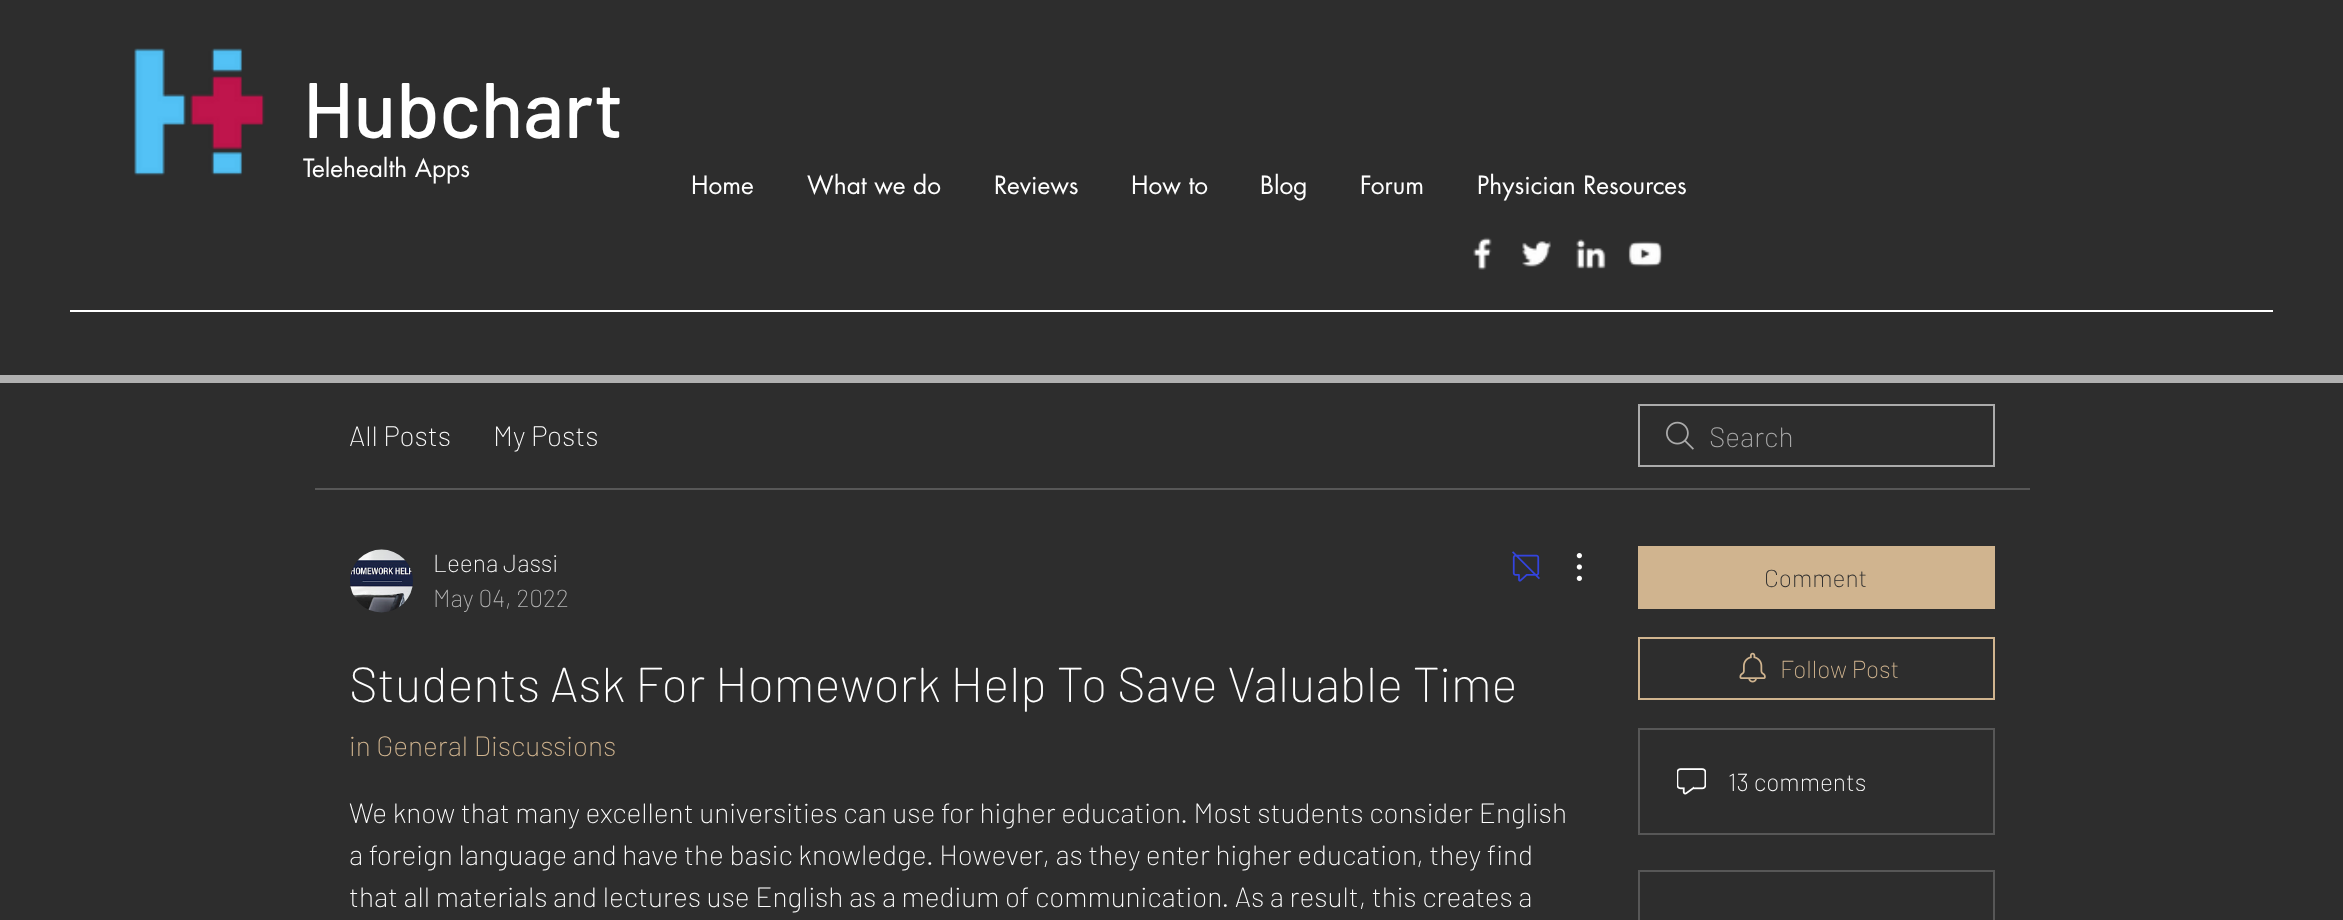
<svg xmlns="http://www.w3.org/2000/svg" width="2343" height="920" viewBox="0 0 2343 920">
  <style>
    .t1 { font: 500 78.75px Barlow; fill: #fff; }
    .t2 { font: 24.5px futura; fill: #fff; }
    .t3 { font: 200 28px Barlow; fill: #fff; }
    .t4 { font: 200 28px Barlow; fill: #ababab; }
    .t5 { font: 200 24.5px Barlow; fill: #fff; }
    .t6 { font: 200 24.5px Barlow; fill: #b3b3b3; }
    .t7 { font: 200 49px Barlow; fill: #fff; }
    .t8 { font: 200 28px Barlow; fill: #d0b48f; }
    .t9 { font: 200 24.5px Barlow; fill: #2d2d2d; }
    .t10 { font: 200 24.5px Barlow; fill: #d0b48f; }
  </style>
  <rect width="100%" height="100%" fill="#2d2d2d"/>
  <image x="134" y="48" width="131" height="128" href="images/1.png"/>
  <text x="303" y="138" class="t1">Hubchart</text>
  <text x="303" y="177" class="t2">Telehealth Apps</text>
  <text x="691" y="194" class="t2">Home</text>
  <text x="807" y="194" class="t2">What we do</text>
  <text x="994" y="194" class="t2">Reviews</text>
  <text x="1131" y="194" class="t2">How to</text>
  <text x="1260" y="194" class="t2">Blog</text>
  <text x="1360" y="194" class="t2">Forum</text>
  <text x="1477" y="194" class="t2">Physician Resources</text>
  <image x="1473" y="237" width="19" height="33" href="images/2.png"/>
  <image x="1522" y="241" width="29" height="26" href="images/3.png"/>
  <image x="1576" y="239" width="30" height="30" href="images/4.png"/>
  <image x="1628" y="241" width="35" height="26" href="images/5.png"/>
  <rect x="70" y="310" width="2203" height="2" fill="#fff"/>
  <rect x="0" y="375" width="2343" height="8" fill="#b0b0b0"/>
  <rect x="315" y="488" width="1715" height="2" fill="#575757"/>
  <text x="349" y="446" class="t3">All Posts</text>
  <text x="493" y="446" class="t3">My Posts</text>
  <image x="1666" y="421" width="28" height="29" href="images/6.png"/>
  <rect x="1639" y="405" width="355" height="61" fill="none" stroke="#ababab" stroke-width="2"/>
  <text x="1709" y="447" class="t4">Search</text>
  <image x="350" y="549" width="63" height="64" href="images/7.png"/>
  <text x="433" y="572" class="t5">Leena Jassi</text>
  <text x="433" y="607" class="t6">May 04, 2022</text>
  <image x="1512" y="551" width="28" height="31" href="images/8.png"/>
  <image x="1576" y="553" width="6" height="28" href="images/9.png"/>
  <text x="349" y="702" class="t7">Students Ask For Homework Help To Save Valuable Time</text>
  <text x="349" y="756" class="t8">in General Discussions</text>
  <text x="349" y="823" class="t3">We know that many excellent universities can use for higher education. Most students consider English</text>
  <text x="349" y="865" class="t3">a foreign language and have the basic knowledge. However, as they enter higher education, they find</text>
  <text x="349" y="907" class="t3">that all materials and lectures use English as a medium of communication. As a result, this creates a</text>
  <rect x="1638" y="546" width="357" height="63" fill="#d0b48f"/>
  <text x="1764" y="587" class="t9">Comment</text>
  <rect x="1639" y="638" width="355" height="61" fill="none" stroke="#d0b48f" stroke-width="2"/>
  <image x="1739" y="652" width="27" height="31" href="images/10.png"/>
  <text x="1780" y="678" class="t10">Follow Post</text>
  <rect x="1639" y="729" width="355" height="105" fill="none" stroke="#575757" stroke-width="2"/>
  <image x="1677" y="768" width="29" height="27" href="images/11.png"/>
  <text x="1728" y="791" class="t5">13 comments</text>
  <rect x="1639" y="871" width="355" height="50" fill="none" stroke="#575757" stroke-width="2"/>
</svg>
